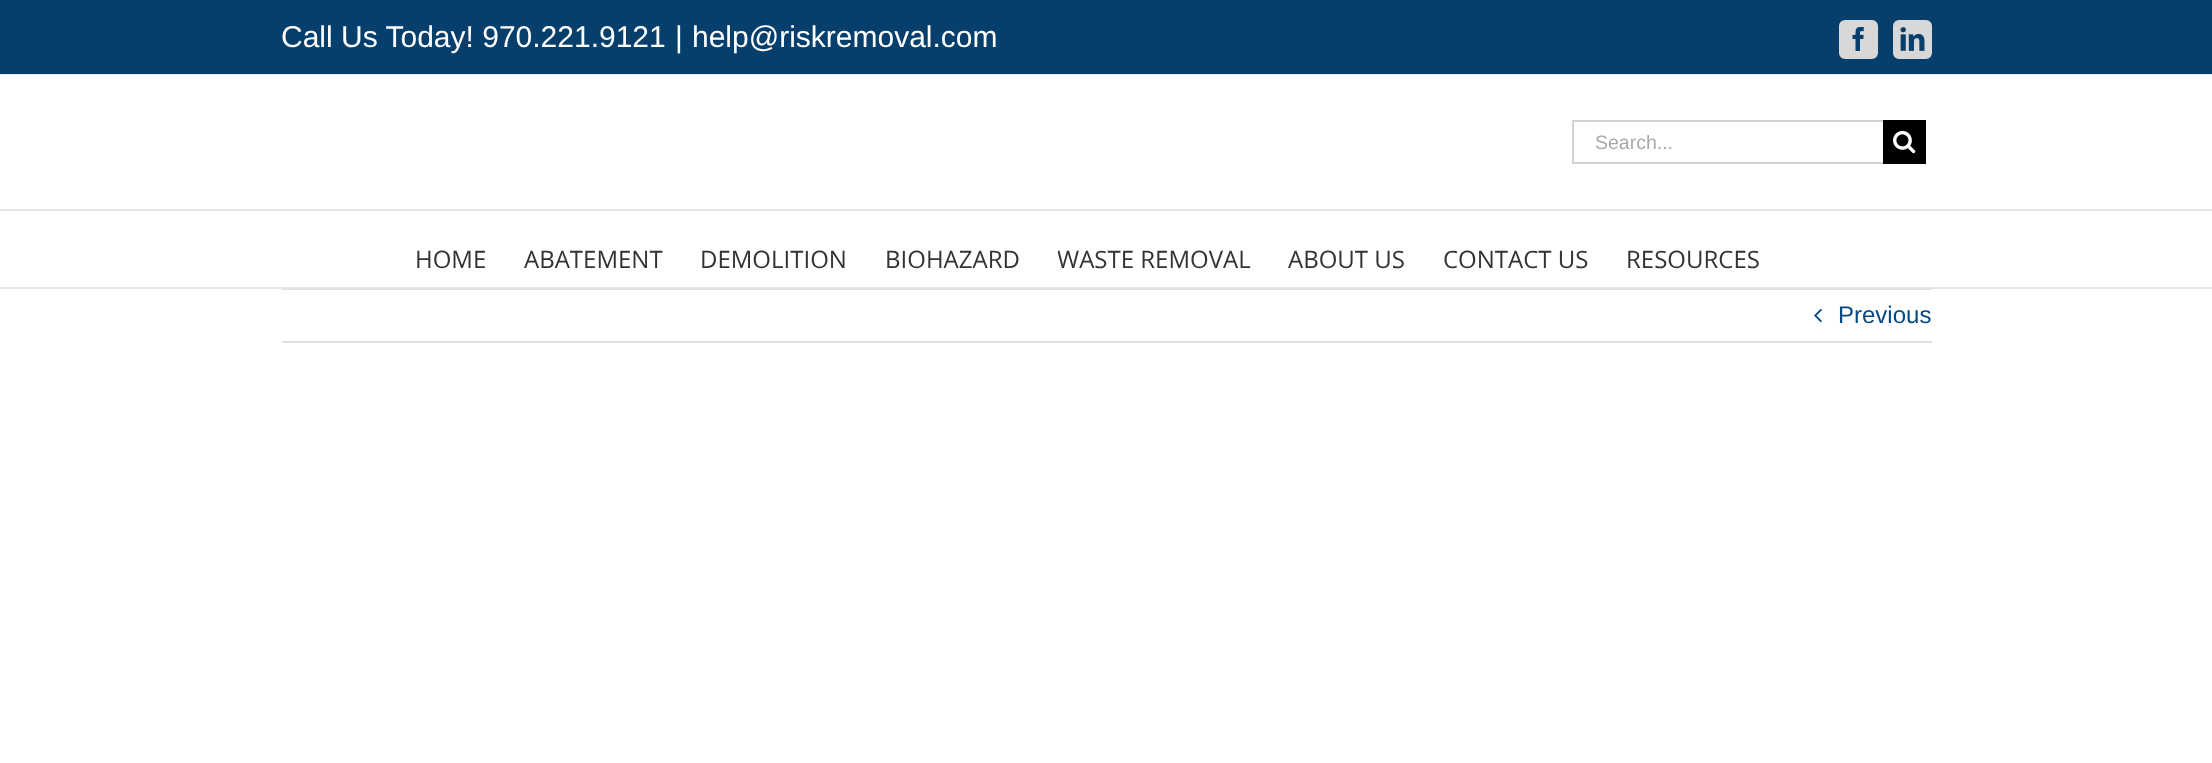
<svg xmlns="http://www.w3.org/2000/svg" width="2212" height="763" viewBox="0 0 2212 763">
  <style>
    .t1 { font: 30px Liberation Sans; fill: #fff; }
    .t2 { font: 19.5px Liberation Sans; fill: #aaa9a9; }
    .t3 { font: 24px Open Sans; fill: #333; }
    .t4 { font: 24px Liberation Sans; fill: #064982; }
  </style>
  <defs>
    <clipPath id="clip1"><rect x="1058" y="227" width="231" height="60"/></clipPath>
  </defs>
  <rect width="100%" height="100%" fill="#fff"/>
  <rect x="0" y="0" width="2212" height="74" fill="#063e6c"/>
  <rect x="0" y="74" width="2212" height="1" fill="#e5e5e5"/>
  <text x="281" y="47" class="t1">Call Us Today! 970.221.9121</text>
  <text x="675" y="47" class="t1">|</text>
  <text x="692" y="47" class="t1">help@riskremoval.com</text>
  <rect x="1840" y="21" width="37" height="37" rx="5" fill="#d8d8d8" stroke="#d8d8d8" stroke-width="2"/>
  <image x="1852" y="27" width="12" height="24" href="images/1.png"/>
  <rect x="1894" y="21" width="37" height="37" rx="5" fill="#d8d8d8" stroke="#d8d8d8" stroke-width="2"/>
  <image x="1900" y="27" width="25" height="24" href="images/2.png"/>
  <rect x="0" y="209" width="2212" height="2" fill="#e5e5e5"/>
  <rect x="1572" y="120" width="311" height="2" fill="#d2d2d2"/>
  <rect x="1572" y="162" width="311" height="2" fill="#d2d2d2"/>
  <rect x="1572" y="120" width="2" height="44" fill="#d2d2d2"/>
  <text x="1595" y="149" class="t2">Search...</text>
  <rect x="1883" y="120" width="43" height="44" fill="#000"/>
  <image x="1893" y="130" width="23" height="24" href="images/3.png"/>
  <rect x="0" y="287" width="2212" height="2" fill="#e5e5e5"/>
  <text x="415" y="268" class="t3">HOME</text>
  <text x="524" y="268" class="t3">ABATEMENT</text>
  <text x="700" y="268" class="t3">DEMOLITION</text>
  <text x="885" y="268" class="t3">BIOHAZARD</text>
  <g clip-path="url(#clip1)">
    <text x="1057" y="268" class="t3">WASTE REMOVAL</text>
  </g>
  <text x="1288" y="268" class="t3">ABOUT US</text>
  <text x="1443" y="268" class="t3">CONTACT US</text>
  <text x="1626" y="268" class="t3">RESOURCES</text>
  <rect x="282" y="289" width="1650" height="1" fill="#e0dede"/>
  <rect x="282" y="341" width="1650" height="2" fill="#e0dede"/>
  <image x="1814" y="308" width="8" height="15" href="images/4.png"/>
  <text x="1838" y="323" class="t4">Previous</text>
</svg>
